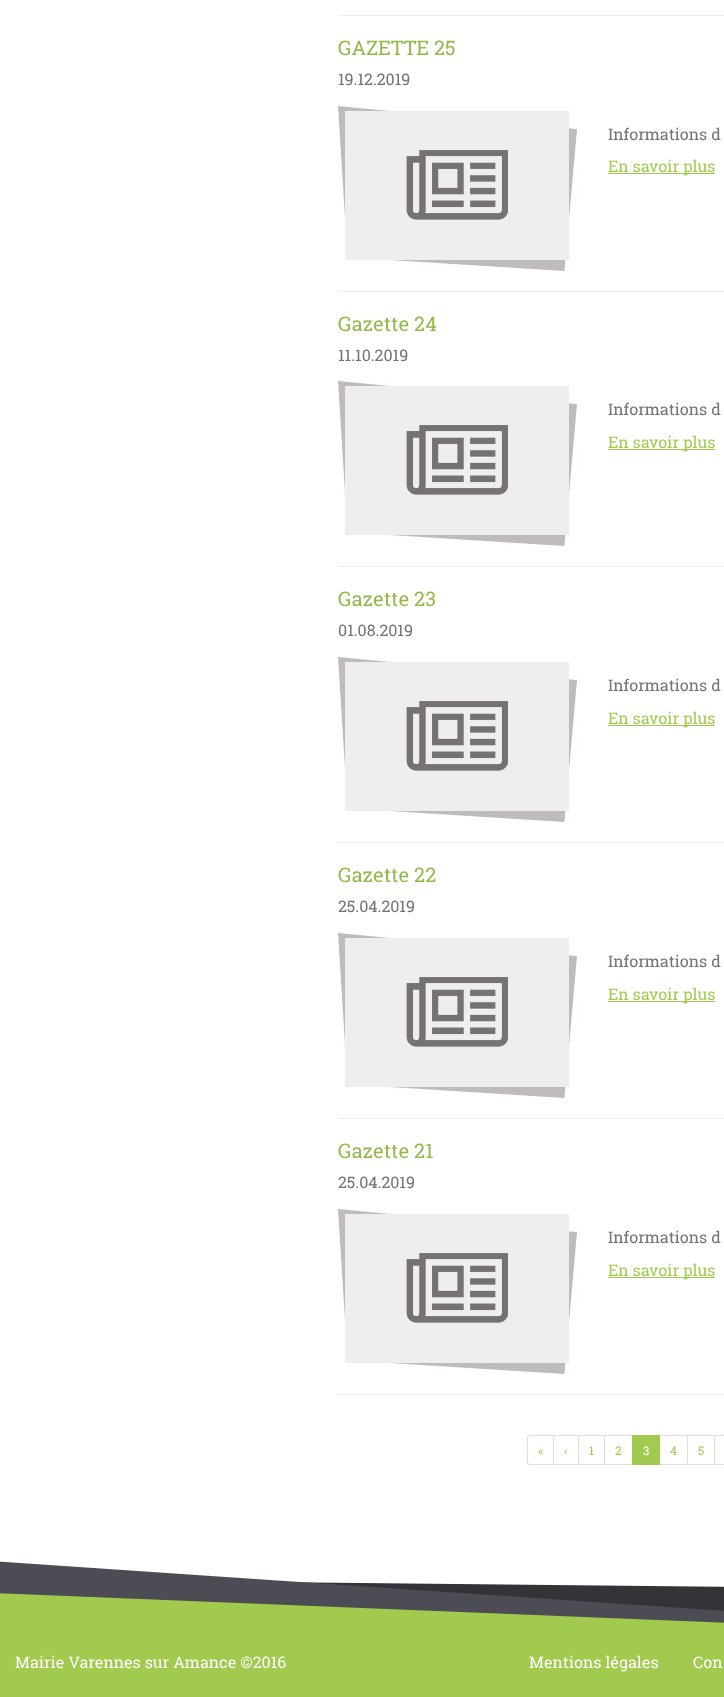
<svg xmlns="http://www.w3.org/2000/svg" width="724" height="1697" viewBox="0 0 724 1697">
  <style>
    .t1 { font: 20px Roboto Slab; fill: #94b948; }
    .t2 { font: 16px Roboto Slab; fill: #767272; }
    .t3 { font: 16px Roboto Slab; fill: #a2ca4e; }
    .t4 { font: 12px Roboto Slab; fill: #a2ca4e; }
    .t5 { font: 12px Roboto Slab; fill: #fff; }
    .t6 { font: 16px Roboto Slab; fill: #fff; }
  </style>
  <rect width="100%" height="100%" fill="#fff"/>
  <rect x="338" y="15" width="386" height="1" fill="#eee"/>
  <text x="338" y="55" class="t1">GAZETTE 25</text>
  <text x="338" y="85" class="t2">19.12.2019</text>
  <image x="338" y="106" width="239" height="165" href="images/1.png"/>
  <image x="345" y="111" width="224" height="149" href="images/2.png"/>
  <text x="608" y="140" class="t2">Informations d</text>
  <rect x="608" y="173" width="107" height="1" fill="#a2ca4e"/>
  <text x="608" y="172" class="t3">En savoir plus</text>
  <rect x="338" y="291" width="386" height="1" fill="#eee"/>
  <text x="338" y="331" class="t1">Gazette 24</text>
  <text x="338" y="361" class="t2">11.10.2019</text>
  <image x="338" y="381" width="239" height="165" href="images/1.png"/>
  <image x="345" y="386" width="224" height="149" href="images/2.png"/>
  <text x="608" y="415" class="t2">Informations d</text>
  <rect x="608" y="449" width="107" height="1" fill="#a2ca4e"/>
  <text x="608" y="448" class="t3">En savoir plus</text>
  <rect x="338" y="566" width="386" height="1" fill="#eee"/>
  <text x="338" y="606" class="t1">Gazette 23</text>
  <text x="338" y="636" class="t2">01.08.2019</text>
  <image x="338" y="657" width="239" height="165" href="images/1.png"/>
  <image x="345" y="662" width="224" height="149" href="images/2.png"/>
  <text x="608" y="691" class="t2">Informations d</text>
  <rect x="608" y="725" width="107" height="1" fill="#a2ca4e"/>
  <text x="608" y="724" class="t3">En savoir plus</text>
  <rect x="338" y="842" width="386" height="1" fill="#eee"/>
  <text x="338" y="882" class="t1">Gazette 22</text>
  <text x="338" y="912" class="t2">25.04.2019</text>
  <image x="338" y="933" width="239" height="165" href="images/1.png"/>
  <image x="345" y="938" width="224" height="149" href="images/2.png"/>
  <text x="608" y="967" class="t2">Informations d</text>
  <rect x="608" y="1001" width="107" height="1" fill="#a2ca4e"/>
  <text x="608" y="1000" class="t3">En savoir plus</text>
  <rect x="338" y="1118" width="386" height="1" fill="#eee"/>
  <text x="338" y="1158" class="t1">Gazette 21</text>
  <text x="338" y="1188" class="t2">25.04.2019</text>
  <image x="338" y="1209" width="239" height="165" href="images/1.png"/>
  <image x="345" y="1214" width="224" height="149" href="images/2.png"/>
  <text x="608" y="1243" class="t2">Informations d</text>
  <rect x="608" y="1277" width="107" height="1" fill="#a2ca4e"/>
  <text x="608" y="1276" class="t3">En savoir plus</text>
  <rect x="338" y="1394" width="386" height="1" fill="#eee"/>
  <path d="M530 1435.5H553.5V1464.5H530C528.5 1464.5 527.5 1463.5 527.5 1462V1438C527.5 1436.5 528.5 1435.5 530 1435.5Z" fill="none" stroke="#ddd"/>
  <text x="538" y="1455" class="t4">«</text>
  <rect x="553.5" y="1435.5" width="25" height="29" fill="none" stroke="#ddd"/>
  <text x="564" y="1455" class="t4">‹</text>
  <rect x="578.5" y="1435.5" width="26" height="29" fill="none" stroke="#ddd"/>
  <text x="589" y="1455" class="t4">1</text>
  <rect x="604.5" y="1435.5" width="28" height="29" fill="none" stroke="#ddd"/>
  <text x="615" y="1455" class="t4">2</text>
  <rect x="659.5" y="1435.5" width="28" height="29" fill="none" stroke="#ddd"/>
  <rect x="632" y="1435" width="28" height="30" fill="#a2ca4f"/>
  <text x="643" y="1455" class="t5">3</text>
  <text x="670" y="1455" class="t4">4</text>
  <rect x="687.5" y="1435.5" width="27" height="29" fill="none" stroke="#ddd"/>
  <text x="698" y="1455" class="t4">5</text>
  <rect x="714.5" y="1435.5" width="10" height="29" fill="none" stroke="#ddd"/>
  <image x="0" y="1561" width="724" height="136" href="images/3.png"/>
  <text x="15" y="1668" class="t6">Mairie Varennes sur Amance ©2016</text>
  <text x="529" y="1668" class="t6">Mentions légales</text>
  <text x="693" y="1668" class="t6">Con</text>
</svg>
